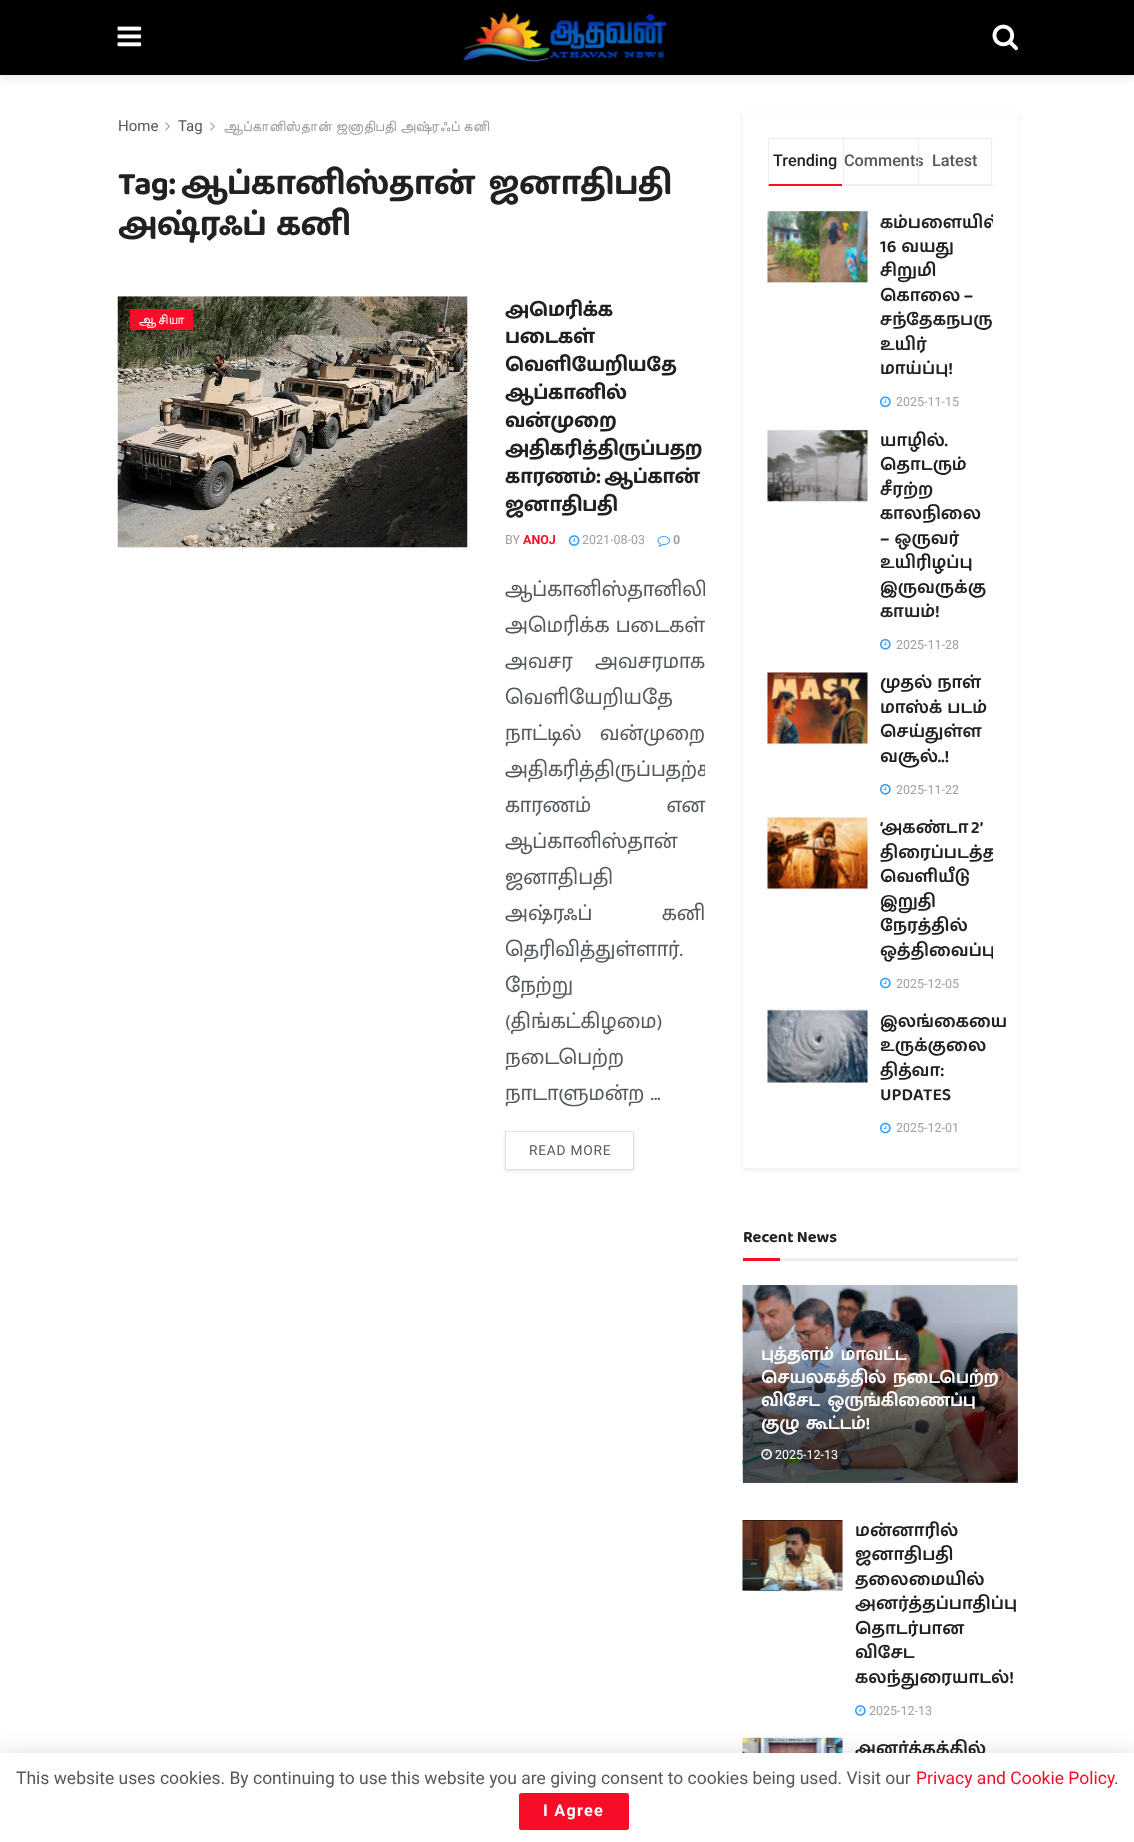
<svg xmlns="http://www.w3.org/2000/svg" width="1134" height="1842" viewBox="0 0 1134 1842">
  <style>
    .t1 { font: 15px Roboto; fill: #53585c; }
    .t2 { font: 15px FreeSans; fill: #a0a0a0; }
    .t3 { font: bold 32.5px 'Baloo Thambi 2'; letter-spacing: -0.65px; fill: #212121; }
    .t4 { font: 13.75px FreeSans; letter-spacing: 1.25px; fill: #fff; }
    .t5 { font: bold 20px 'Baloo Thambi 2'; letter-spacing: -0.4px; fill: #212121; }
    .t6 { font: 12.5px Roboto; fill: #a0a0a0; }
    .t7 { font: bold 12.5px Roboto; fill: #f70d28; }
    .t8 { font: bold 12.5px Roboto; fill: #a0a0a0; }
    .t9 { font: 22.5px Mukta Malar; fill: #53585c; }
    .t10 { font: 13.75px Roboto; letter-spacing: 0.75px; fill: #53585c; }
    .t11 { font: 500 16.25px Roboto; fill: #212121; }
    .t12 { font: 500 16.25px Roboto; fill: #53585c; }
    .t13 { font: 600 17.5px 'Baloo Thambi 2'; fill: #212121; }
    .t14 { font: bold 16.25px 'Baloo Thambi 2'; fill: #212121; }
    .t15 { font: 600 17.5px 'Baloo Thambi 2'; letter-spacing: -0.3px; fill: #fff; }
    .t16 { font: 12.5px Roboto; fill: #fff; }
    .t17 { font: 17.5px Roboto; fill: #53585c; }
    .t18 { font: 17.5px Roboto; fill: #f70d28; }
    .t19 { font: bold 16.25px Roboto; letter-spacing: 1.25px; fill: #fff; }
  </style>
  <defs>
    <clipPath id="clip1"><rect x="505" y="296" width="200" height="880"/></clipPath>
    <clipPath id="clip2"><path d="M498 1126H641V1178H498ZM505 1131H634V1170H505Z" clip-rule="evenodd"/></clipPath>
    <clipPath id="clip3"><rect x="768" y="211" width="225" height="207"/></clipPath>
    <clipPath id="clip4"><rect x="768" y="818" width="225" height="180"/></clipPath>
    <linearGradient id="g1" gradientUnits="userSpaceOnUse" x1="880" y1="1319" x2="880" y2="1483"><stop offset="0" stop-color="#000" stop-opacity="0"/><stop offset="0.7" stop-color="#000" stop-opacity="0.65"/></linearGradient>
  </defs>
  <rect width="100%" height="100%" fill="#fff"/>
  <rect x="0" y="3" width="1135" height="75" fill="#0000001a" filter="blur(4px)"/>
  <rect x="0" y="0" width="1134" height="75" fill="#000"/>
  <image x="117" y="26" width="25" height="21" href="images/1.png"/>
  <image x="463" y="12" width="204" height="50" href="images/2.png"/>
  <image x="992" y="24" width="26" height="27" href="images/3.png"/>
  <text x="118" y="131" class="t1">Home</text>
  <image x="165" y="122" width="5" height="9" href="images/4.png"/>
  <text x="178" y="131" class="t1">Tag</text>
  <image x="210" y="122" width="5" height="9" href="images/4.png"/>
  <text x="223" y="131" class="t2">ஆப்கானிஸ்தான் ஜனாதிபதி அஷ்ரஃப் கனி</text>
  <text x="118" y="194" class="t3">Tag:</text>
  <text x="181" y="194" word-spacing="6" class="t3">ஆப்கானிஸ்தான் ஜனாதிபதி</text>
  <text x="118" y="235" word-spacing="2" class="t3">அஷ்ரஃப் கனி</text>
  <rect x="118" y="296" width="350" height="252" fill="#f7f7f7"/>
  <image x="117" y="296" width="351" height="252" href="images/5.png"/>
  <rect x="130" y="309" width="63" height="21" fill="#f70d28"/>
  <text x="138" y="324" class="t4">ஆசியா</text>
  <text x="505" y="316" class="t5">அமெரிக்க</text>
  <text x="505" y="343" class="t5">படைகள்</text>
  <text x="505" y="371" class="t5">வெளியேறியதே</text>
  <text x="505" y="399" class="t5">ஆப்கானில்</text>
  <text x="505" y="427" class="t5">வன்முறை</text>
  <text x="505" y="455" class="t5">அதிகரித்திருப்பதற</text>
  <text x="505" y="483" word-spacing="-1" class="t5">காரணம்: ஆப்கான்</text>
  <text x="505" y="511" class="t5">ஜனாதிபதி</text>
  <text x="505" y="544" class="t6">BY</text>
  <text x="523" y="544" class="t7">ANOJ</text>
  <image x="568" y="535" width="12" height="11" href="images/6.png"/>
  <text x="582" y="544" class="t6">2021-08-03</text>
  <image x="657" y="536" width="13" height="11" href="images/7.png"/>
  <text x="673" y="544" class="t8">0</text>
  <g clip-path="url(#clip1)">
    <text x="505" y="596" class="t9">ஆப்கானிஸ்தானிலி</text>
  </g>
  <text x="505" y="632" class="t9">அமெரிக்க படைகள்</text>
  <text x="505" y="668" word-spacing="16" class="t9">அவசர அவசரமாக</text>
  <text x="505" y="704" class="t9">வெளியேறியதே</text>
  <text x="505" y="740" word-spacing="12" class="t9">நாட்டில் வன்முறை</text>
  <g clip-path="url(#clip1)">
    <text x="505" y="776" class="t9">அதிகரித்திருப்பதற்க</text>
  </g>
  <text x="505" y="812" word-spacing="69" class="t9">காரணம் என</text>
  <text x="505" y="848" class="t9">ஆப்கானிஸ்தான்</text>
  <text x="505" y="884" class="t9">ஜனாதிபதி</text>
  <text x="505" y="920" word-spacing="63" class="t9">அஷ்ரஃப் கனி</text>
  <text x="505" y="956" class="t9">தெரிவித்துள்ளார்.</text>
  <text x="505" y="992" class="t9">நேற்று</text>
  <text x="505" y="1028" class="t9">(திங்கட்கிழமை)</text>
  <text x="505" y="1064" class="t9">நடைபெற்ற</text>
  <text x="505" y="1100" class="t9">நாடாளுமன்ற ...</text>
  <g clip-path="url(#clip2)">
    <rect x="505" y="1133" width="129" height="38" fill="#0000001a" filter="blur(2px)"/>
  </g>
  <rect x="505.5" y="1131.5" width="128" height="38" fill="none" stroke="#e0e0e0"/>
  <text x="529" y="1155" class="t10">READ MORE</text>
  <rect x="743" y="115" width="275" height="1055" fill="#00000014" filter="blur(2.5px)"/>
  <rect x="743" y="113" width="275" height="1055" fill="#fff"/>
  <rect x="768" y="138" width="225" height="1" fill="#eee"/>
  <path d="M842 186H768L769 184H842Z" fill="#f70d28"/>
  <path d="M768 186V138L769 139V184Z" fill="#eee"/>
  <text x="773" y="166" class="t11">Trending</text>
  <rect x="843" y="184" width="75" height="2" fill="#eee"/>
  <rect x="843" y="138" width="1" height="48" fill="#eee"/>
  <text x="844" y="166" class="t12">Comments</text>
  <rect x="991" y="138" width="1" height="48" fill="#eee"/>
  <rect x="918" y="184" width="75" height="2" fill="#eee"/>
  <rect x="918" y="138" width="1" height="48" fill="#eee"/>
  <text x="932" y="166" class="t12">Latest</text>
  <rect x="768" y="211" width="100" height="72" fill="#f7f7f7"/>
  <rect x="767" y="212" width="1" height="70" fill="#fbfbfb"/>
  <image x="767" y="211" width="101" height="72" href="images/8.png"/>
  <g clip-path="url(#clip3)">
    <text x="880" y="228" class="t13">கம்பளையில்</text>
  </g>
  <text x="880" y="252" class="t13">16 வயது</text>
  <text x="880" y="276" class="t13">சிறுமி</text>
  <text x="880" y="301" class="t13">கொலை –</text>
  <text x="880" y="325" class="t13">சந்தேகநபரு</text>
  <text x="880" y="350" class="t13">உயிர்</text>
  <text x="880" y="374" class="t13">மாய்ப்பு!</text>
  <image x="880" y="396" width="11" height="12" href="images/9.png"/>
  <text x="896" y="406" class="t6">2025-11-15</text>
  <rect x="768" y="430" width="100" height="71" fill="#f7f7f7"/>
  <rect x="767" y="431" width="1" height="70" fill="#fbfbfb"/>
  <image x="767" y="429" width="101" height="73" href="images/10.png"/>
  <text x="880" y="446" class="t13">யாழில்.</text>
  <text x="880" y="470" class="t13">தொடரும்</text>
  <text x="880" y="495" class="t13">சீரற்ற</text>
  <text x="880" y="519" class="t13">காலநிலை</text>
  <text x="880" y="544" class="t13">– ஒருவர்</text>
  <text x="880" y="568" class="t13">உயிரிழப்பு</text>
  <text x="880" y="593" class="t13">இருவருக்கு</text>
  <text x="880" y="617" class="t13">காயம்!</text>
  <image x="880" y="638" width="11" height="12" href="images/11.png"/>
  <text x="896" y="649" class="t6">2025-11-28</text>
  <rect x="768" y="673" width="100" height="71" fill="#f7f7f7"/>
  <rect x="767" y="672" width="100" height="71" fill="#f7f7f7"/>
  <image x="767" y="672" width="101" height="73" href="images/12.png"/>
  <text x="880" y="688" class="t13">முதல் நாள்</text>
  <text x="880" y="713" class="t13">மாஸ்க் படம்</text>
  <text x="880" y="737" class="t13">செய்துள்ள</text>
  <text x="880" y="762" class="t13">வசூல்..!</text>
  <image x="880" y="783" width="11" height="12" href="images/11.png"/>
  <text x="896" y="794" class="t6">2025-11-22</text>
  <rect x="768" y="818" width="100" height="71" fill="#f7f7f7"/>
  <rect x="767" y="818" width="1" height="70" fill="#fbfbfb"/>
  <image x="767" y="817" width="101" height="73" href="images/13.png"/>
  <text x="880" y="833" word-spacing="-1" class="t13">‘அகண்டா 2’</text>
  <g clip-path="url(#clip4)">
    <text x="880" y="858" class="t13">திரைப்படத்த</text>
  </g>
  <text x="880" y="882" class="t13">வெளியீடு</text>
  <text x="880" y="907" class="t13">இறுதி</text>
  <text x="880" y="931" class="t13">நேரத்தில்</text>
  <g clip-path="url(#clip4)">
    <text x="880" y="956" class="t13">ஒத்திவைப்பு</text>
  </g>
  <image x="880" y="977" width="11" height="12" href="images/14.png"/>
  <text x="896" y="988" class="t6">2025-12-05</text>
  <rect x="768" y="1010" width="100" height="73" fill="#f7f7f7"/>
  <rect x="767" y="1011" width="1" height="71" fill="#fbfbfb"/>
  <image x="767" y="1009" width="101" height="74" href="images/15.png"/>
  <text x="880" y="1027" class="t13">இலங்கையை</text>
  <text x="880" y="1051" class="t13">உருக்குலை</text>
  <text x="880" y="1076" class="t13">தித்வா:</text>
  <text x="880" y="1100" class="t13">UPDATES</text>
  <image x="880" y="1122" width="11" height="12" href="images/14.png"/>
  <text x="896" y="1132" class="t6">2025-12-01</text>
  <rect x="780" y="1258" width="238" height="3" fill="#eee"/>
  <text x="743" y="1242" class="t14">Recent News</text>
  <rect x="743" y="1258" width="37" height="3" fill="#f70d28"/>
  <rect x="743" y="1285" width="275" height="198" fill="#f7f7f7"/>
  <image x="742" y="1285" width="1" height="198" href="images/16.png"/>
  <image x="742" y="1285" width="276" height="198" href="images/17.png"/>
  <rect x="743" y="1323" width="275" height="160" fill="url(#g1)"/>
  <text x="761" y="1360" word-spacing="2" class="t15">புத்தளம் மாவட்ட</text>
  <text x="761" y="1383" word-spacing="2" class="t15">செயலகத்தில் நடைபெற்ற</text>
  <text x="761" y="1406" word-spacing="3" class="t15">விசேட ஒருங்கிணைப்பு</text>
  <text x="761" y="1429" word-spacing="2" class="t15">குழு கூட்டம்!</text>
  <image x="761" y="1448" width="11" height="12" href="images/18.png"/>
  <text x="775" y="1459" class="t16">2025-12-13</text>
  <rect x="842" y="1520" width="1" height="71" fill="#f7f7f7"/>
  <rect x="742" y="1520" width="1" height="71" fill="#fbfbfb"/>
  <image x="742" y="1520" width="101" height="72" href="images/19.png"/>
  <text x="855" y="1536" class="t13">மன்னாரில்</text>
  <text x="855" y="1560" class="t13">ஜனாதிபதி</text>
  <text x="855" y="1585" class="t13">தலைமையில்</text>
  <text x="855" y="1609" class="t13">அனர்த்தப்பாதிப்பு</text>
  <text x="855" y="1634" class="t13">தொடர்பான</text>
  <text x="855" y="1658" class="t13">விசேட</text>
  <text x="855" y="1683" class="t13">கலந்துரையாடல்!</text>
  <image x="855" y="1705" width="11" height="11" href="images/20.png"/>
  <text x="869" y="1715" class="t6">2025-12-13</text>
  <rect x="842" y="1738" width="1" height="15" fill="#f7f7f7"/>
  <rect x="742" y="1738" width="1" height="15" fill="#fbfbfb"/>
  <image x="742" y="1737" width="101" height="16" href="images/21.png"/>
  <text x="855" y="1754" class="t13">அனர்த்தத்தில்</text>
  <rect x="0" y="1755" width="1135" height="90" fill="#00000026" filter="blur(12.5px)"/>
  <rect x="0" y="1753" width="1134" height="89" fill="#fff"/>
  <text x="16" y="1784" class="t17">This website uses cookies. By continuing to use this website you are giving consent to cookies being used. Visit our</text>
  <text x="916" y="1784" class="t18">Privacy and Cookie Policy</text>
  <text x="1114" y="1784" class="t17">.</text>
  <rect x="519" y="1793" width="110" height="37" rx="2.5" fill="#f70d28"/>
  <text x="543" y="1816" class="t19">I Agree</text>
</svg>
